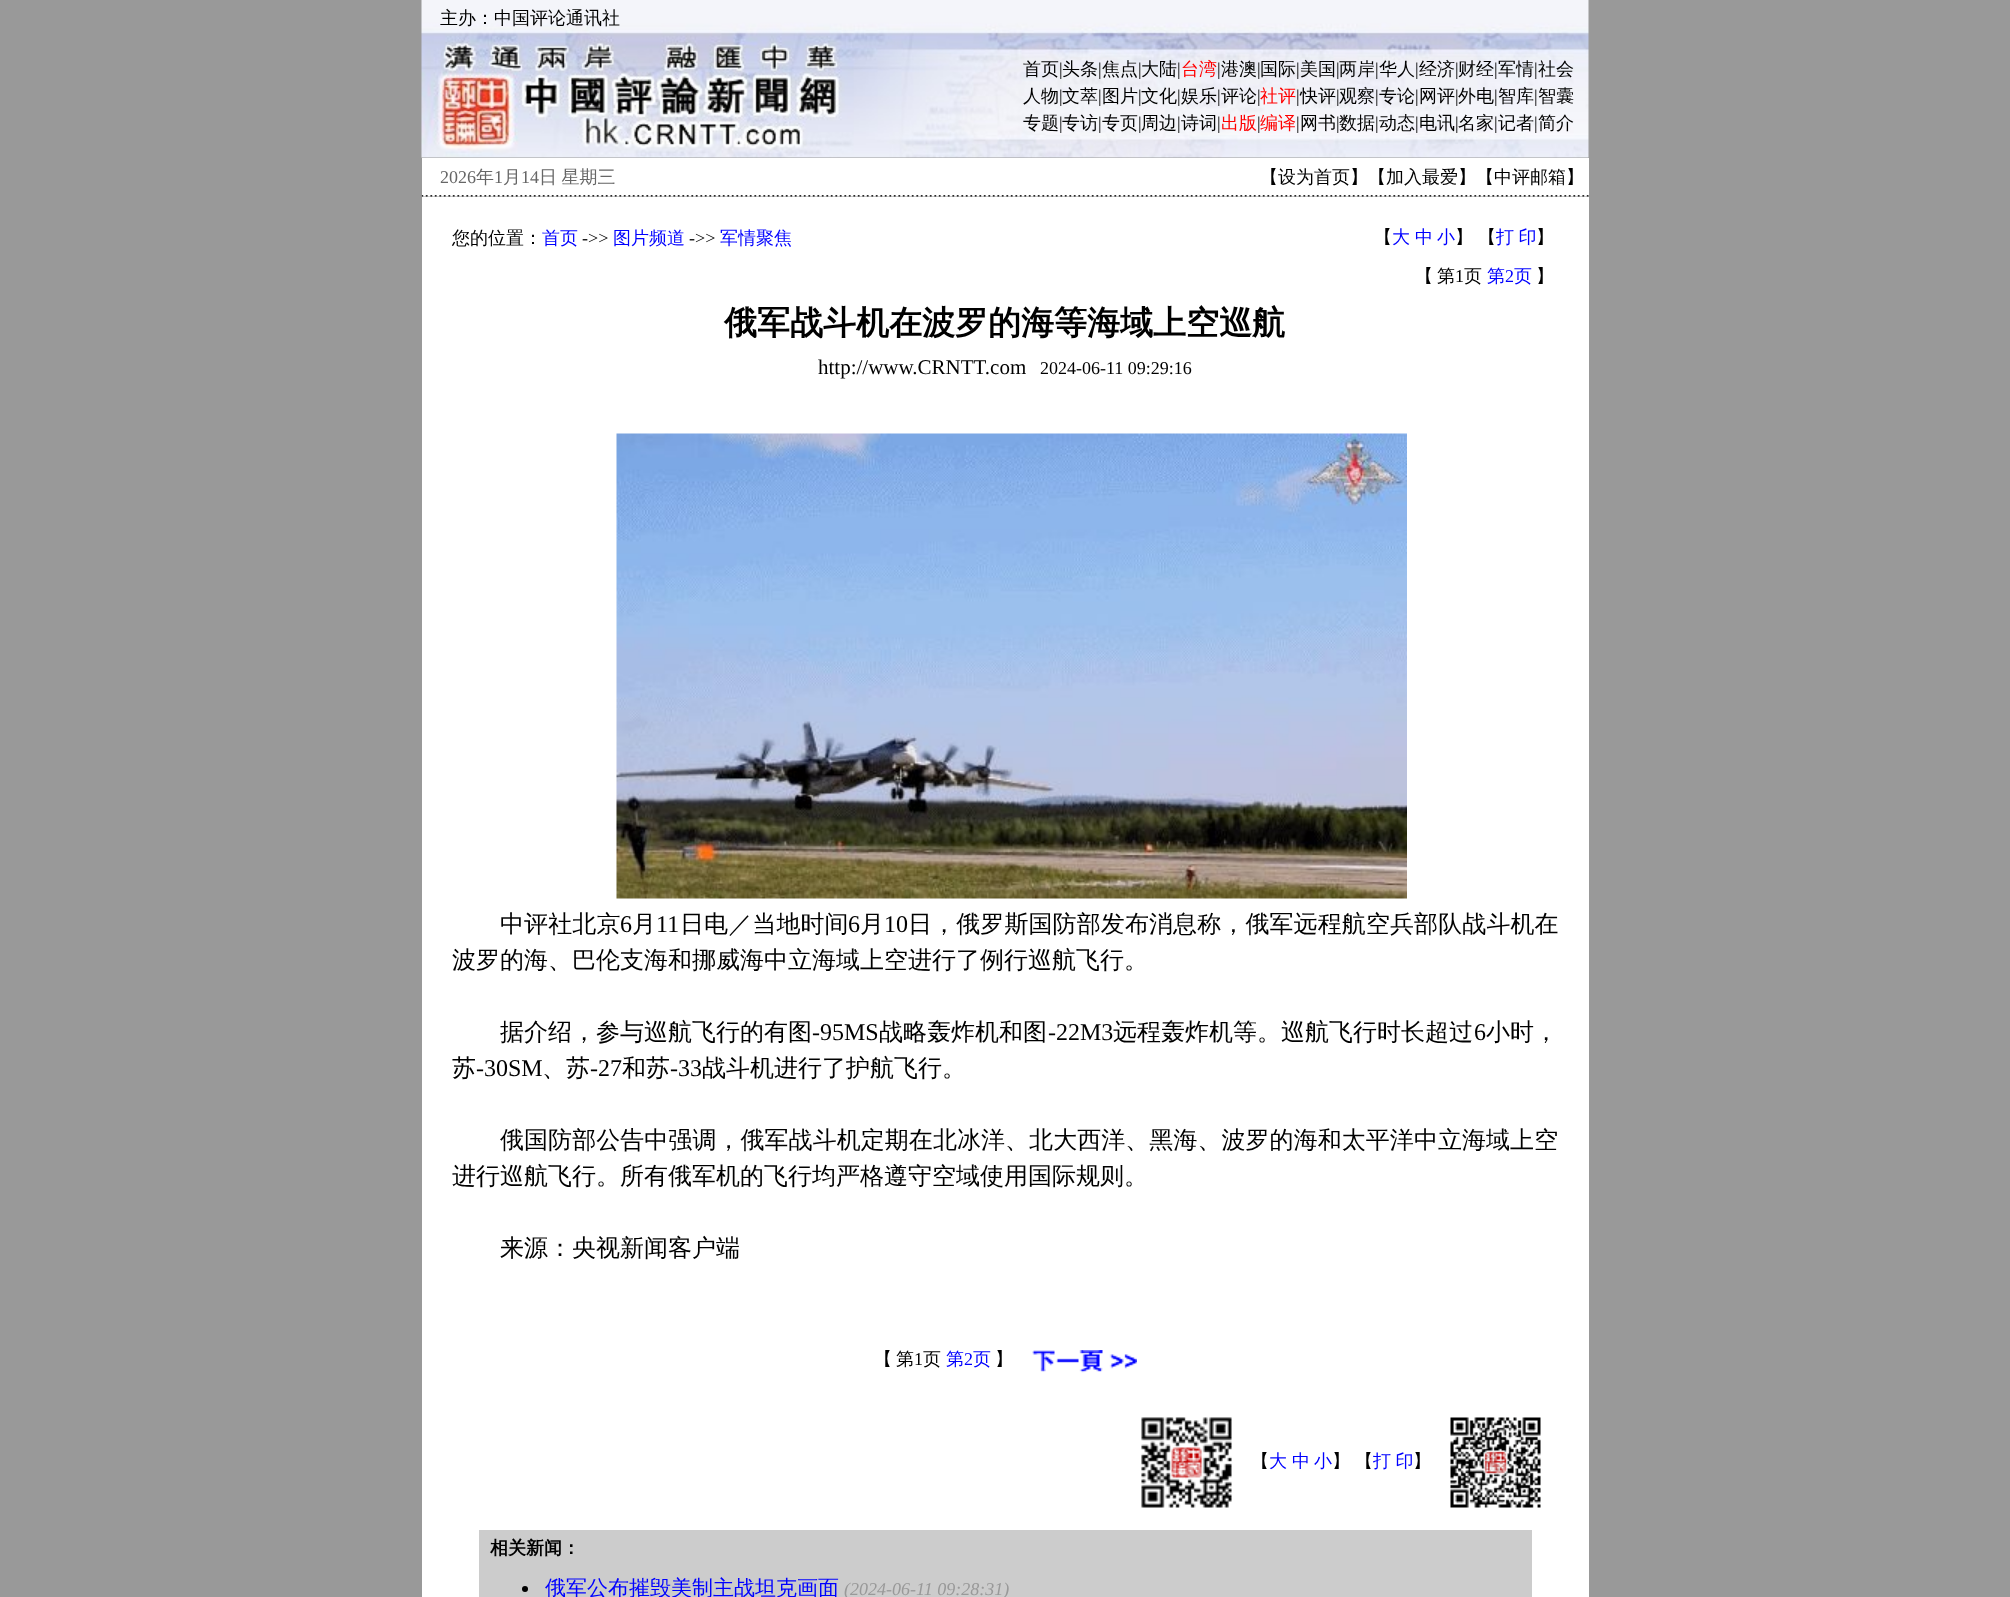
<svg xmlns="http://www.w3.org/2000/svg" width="2010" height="1597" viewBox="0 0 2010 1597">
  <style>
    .t1 { font: 500 18px WenQuanYi Zen Hei; fill: #000; }
    .t2 { font: 18px Liberation Serif; fill: #000; }
    .t3 { font: 500 18px WenQuanYi Zen Hei; fill: #f00; }
    .t4 { font: 18px Liberation Serif; fill: #666; }
    .t5 { font: 500 18px WenQuanYi Zen Hei; fill: #666; }
    .t6 { font: 500 18px WenQuanYi Zen Hei; fill: #00f; }
    .t7 { font: 18px Liberation Serif; fill: #00f; }
    .t8 { font: bold 33px WenQuanYi Zen Hei; fill: #000; }
    .t9 { font: 21px Liberation Serif; fill: #000; }
    .t10 { font: 500 24px WenQuanYi Zen Hei; letter-spacing: 0.1px; fill: #000; }
    .t11 { font: 24px Liberation Serif; letter-spacing: 0.1px; fill: #000; }
    .t12 { font: 500 24px WenQuanYi Zen Hei; fill: #000; }
    .t13 { font: 24px Liberation Serif; fill: #000; }
    .t14 { font: 500 24px WenQuanYi Zen Hei; letter-spacing: 0.05px; fill: #000; }
    .t15 { font: bold 18px WenQuanYi Zen Hei; fill: #000; }
    .t16 { font: 500 21px WenQuanYi Zen Hei; fill: #00f; }
    .t17 { font: italic 18px Liberation Serif; fill: #999; }
  </style>
  <rect width="100%" height="100%" fill="#999"/>
  <image x="421" y="0" width="1168" height="158" href="images/1.png"/>
  <text x="440" y="24" class="t1">主办：中国评论通讯社</text>
  <text x="1023" y="75" class="t1">首页</text>
  <text x="1059" y="75" class="t2">|</text>
  <text x="1062" y="75" class="t1">头条</text>
  <text x="1098" y="75" class="t2">|</text>
  <text x="1102" y="75" class="t1">焦点</text>
  <text x="1138" y="75" class="t2">|</text>
  <text x="1141" y="75" class="t1">大陆</text>
  <text x="1177" y="75" class="t2">|</text>
  <text x="1181" y="75" class="t3">台湾</text>
  <text x="1217" y="75" class="t2">|</text>
  <text x="1221" y="75" class="t1">港澳</text>
  <text x="1257" y="75" class="t2">|</text>
  <text x="1260" y="75" class="t1">国际</text>
  <text x="1296" y="75" class="t2">|</text>
  <text x="1300" y="75" class="t1">美国</text>
  <text x="1336" y="75" class="t2">|</text>
  <text x="1339" y="75" class="t1">两岸</text>
  <text x="1375" y="75" class="t2">|</text>
  <text x="1379" y="75" class="t1">华人</text>
  <text x="1415" y="75" class="t2">|</text>
  <text x="1419" y="75" class="t1">经济</text>
  <text x="1455" y="75" class="t2">|</text>
  <text x="1458" y="75" class="t1">财经</text>
  <text x="1494" y="75" class="t2">|</text>
  <text x="1498" y="75" class="t1">军情</text>
  <text x="1534" y="75" class="t2">|</text>
  <text x="1538" y="75" class="t1">社会</text>
  <text x="1023" y="102" class="t1">人物</text>
  <text x="1059" y="102" class="t2">|</text>
  <text x="1062" y="102" class="t1">文萃</text>
  <text x="1098" y="102" class="t2">|</text>
  <text x="1102" y="102" class="t1">图片</text>
  <text x="1138" y="102" class="t2">|</text>
  <text x="1141" y="102" class="t1">文化</text>
  <text x="1177" y="102" class="t2">|</text>
  <text x="1181" y="102" class="t1">娱乐</text>
  <text x="1217" y="102" class="t2">|</text>
  <text x="1221" y="102" class="t1">评论</text>
  <text x="1257" y="102" class="t2">|</text>
  <text x="1260" y="102" class="t3">社评</text>
  <text x="1296" y="102" class="t2">|</text>
  <text x="1300" y="102" class="t1">快评</text>
  <text x="1336" y="102" class="t2">|</text>
  <text x="1339" y="102" class="t1">观察</text>
  <text x="1375" y="102" class="t2">|</text>
  <text x="1379" y="102" class="t1">专论</text>
  <text x="1415" y="102" class="t2">|</text>
  <text x="1419" y="102" class="t1">网评</text>
  <text x="1455" y="102" class="t2">|</text>
  <text x="1458" y="102" class="t1">外电</text>
  <text x="1494" y="102" class="t2">|</text>
  <text x="1498" y="102" class="t1">智库</text>
  <text x="1534" y="102" class="t2">|</text>
  <text x="1538" y="102" class="t1">智囊</text>
  <text x="1023" y="129" class="t1">专题</text>
  <text x="1059" y="129" class="t2">|</text>
  <text x="1062" y="129" class="t1">专访</text>
  <text x="1098" y="129" class="t2">|</text>
  <text x="1102" y="129" class="t1">专页</text>
  <text x="1138" y="129" class="t2">|</text>
  <text x="1141" y="129" class="t1">周边</text>
  <text x="1177" y="129" class="t2">|</text>
  <text x="1181" y="129" class="t1">诗词</text>
  <text x="1217" y="129" class="t2">|</text>
  <text x="1221" y="129" class="t3">出版</text>
  <text x="1257" y="129" class="t2">|</text>
  <text x="1260" y="129" class="t3">编译</text>
  <text x="1296" y="129" class="t2">|</text>
  <text x="1300" y="129" class="t1">网书</text>
  <text x="1336" y="129" class="t2">|</text>
  <text x="1339" y="129" class="t1">数据</text>
  <text x="1375" y="129" class="t2">|</text>
  <text x="1379" y="129" class="t1">动态</text>
  <text x="1415" y="129" class="t2">|</text>
  <text x="1419" y="129" class="t1">电讯</text>
  <text x="1455" y="129" class="t2">|</text>
  <text x="1458" y="129" class="t1">名家</text>
  <text x="1494" y="129" class="t2">|</text>
  <text x="1498" y="129" class="t1">记者</text>
  <text x="1534" y="129" class="t2">|</text>
  <text x="1538" y="129" class="t1">简介</text>
  <rect x="422" y="158" width="1167" height="37" fill="#fff"/>
  <text x="440" y="183" class="t4">2026</text>
  <text x="476" y="183" class="t5">年</text>
  <text x="494" y="183" class="t4">1</text>
  <text x="503" y="183" class="t5">月</text>
  <text x="521" y="183" class="t4">14</text>
  <text x="539" y="183" word-spacing="-1" class="t5">日 星期三</text>
  <text x="1260" y="183" class="t1">【设为首页】【加入最爱】【中评邮箱】</text>
  <image x="421" y="195" width="1168" height="2" href="images/2.png"/>
  <rect x="422" y="197" width="1167" height="1400" fill="#fff"/>
  <text x="452" y="244" class="t1">您的位置：</text>
  <text x="542" y="244" class="t6">首页</text>
  <text x="582" y="244" class="t2">-&gt;&gt;</text>
  <text x="613" y="244" class="t6">图片频道</text>
  <text x="689" y="244" class="t2">-&gt;&gt;</text>
  <text x="720" y="244" class="t6">军情聚焦</text>
  <text x="1374" y="243" class="t1">【</text>
  <text x="1392" y="243" class="t6">大</text>
  <text x="1415" y="243" class="t6">中</text>
  <text x="1437" y="243" class="t6">小</text>
  <text x="1455" y="243" class="t1">】</text>
  <text x="1478" y="243" class="t1">【</text>
  <text x="1496" y="243" word-spacing="-1" class="t6">打 印</text>
  <text x="1536" y="243" class="t1">】</text>
  <text x="1415" y="282" class="t1">【</text>
  <text x="1437" y="282" class="t1">第</text>
  <text x="1455" y="282" class="t2">1</text>
  <text x="1464" y="282" class="t1">页</text>
  <text x="1487" y="282" class="t6">第</text>
  <text x="1505" y="282" class="t7">2</text>
  <text x="1514" y="282" class="t6">页</text>
  <text x="1536" y="282" class="t1">】</text>
  <text x="724" y="334" class="t8">俄军战斗机在波罗的海等海域上空巡航</text>
  <text x="818" y="374" class="t9">http://www.CRNTT.com</text>
  <text x="1040" y="374" class="t2">2024-06-11 09:29:16</text>
  <image x="616" y="433" width="791" height="466" href="images/3.png"/>
  <text x="500" y="932" class="t10">中评社北京</text>
  <text x="620" y="932" class="t11">6</text>
  <text x="632" y="932" class="t10">月</text>
  <text x="656" y="932" class="t11">11</text>
  <text x="680" y="932" class="t10">日电／当地时间</text>
  <text x="848" y="932" class="t11">6</text>
  <text x="860" y="932" class="t10">月</text>
  <text x="884" y="932" class="t11">10</text>
  <text x="908" y="932" class="t10">日，俄罗斯国防部发布消息称，俄军远程航空兵部队战斗机在</text>
  <text x="452" y="968" class="t12">波罗的海、巴伦支海和挪威海中立海域上空进行了例行巡航飞行。</text>
  <text x="500" y="1040" class="t12">据介绍，参与巡航飞行的有图</text>
  <text x="812" y="1040" class="t13">-95MS</text>
  <text x="879" y="1040" class="t12">战略轰炸机和图</text>
  <text x="1048" y="1040" class="t13">-22M3</text>
  <text x="1113" y="1040" class="t12">远程轰炸机等。巡航飞行时长超过</text>
  <text x="1474" y="1040" class="t13">6</text>
  <text x="1486" y="1040" class="t12">小时，</text>
  <text x="452" y="1076" class="t12">苏</text>
  <text x="476" y="1076" class="t13">-30SM</text>
  <text x="542" y="1076" class="t12">、苏</text>
  <text x="590" y="1076" class="t13">-27</text>
  <text x="622" y="1076" class="t12">和苏</text>
  <text x="670" y="1076" class="t13">-33</text>
  <text x="702" y="1076" class="t12">战斗机进行了护航飞行。</text>
  <text x="500" y="1148" class="t14">俄国防部公告中强调，俄军战斗机定期在北冰洋、北大西洋、黑海、波罗的海和太平洋中立海域上空</text>
  <text x="452" y="1184" class="t12">进行巡航飞行。所有俄军机的飞行均严格遵守空域使用国际规则。</text>
  <text x="500" y="1256" class="t12">来源：央视新闻客户端</text>
  <text x="874" y="1365" class="t1">【</text>
  <text x="896" y="1365" class="t1">第</text>
  <text x="914" y="1365" class="t2">1</text>
  <text x="923" y="1365" class="t1">页</text>
  <text x="946" y="1365" class="t6">第</text>
  <text x="964" y="1365" class="t7">2</text>
  <text x="973" y="1365" class="t6">页</text>
  <text x="995" y="1365" class="t1">】</text>
  <image x="1032" y="1350" width="105" height="23" href="images/4.png"/>
  <image x="1141" y="1417" width="91" height="91" href="images/5.png"/>
  <text x="1251" y="1467" class="t1">【</text>
  <text x="1269" y="1467" class="t6">大</text>
  <text x="1292" y="1467" class="t6">中</text>
  <text x="1314" y="1467" class="t6">小</text>
  <text x="1332" y="1467" class="t1">】</text>
  <text x="1355" y="1467" class="t1">【</text>
  <text x="1373" y="1467" word-spacing="-1" class="t6">打 印</text>
  <text x="1413" y="1467" class="t1">】</text>
  <image x="1450" y="1417" width="91" height="91" href="images/6.png"/>
  <rect x="479" y="1530" width="1053" height="67" fill="#ccc"/>
  <text x="490" y="1554" class="t15">相关新闻：</text>
  <circle cx="525" cy="1589" r="3" fill="#000"/>
  <text x="545" y="1595" class="t16">俄军公布摧毁美制主战坦克画面</text>
  <text x="844" y="1595" class="t17">(2024-06-11 09:28:31)</text>
</svg>
